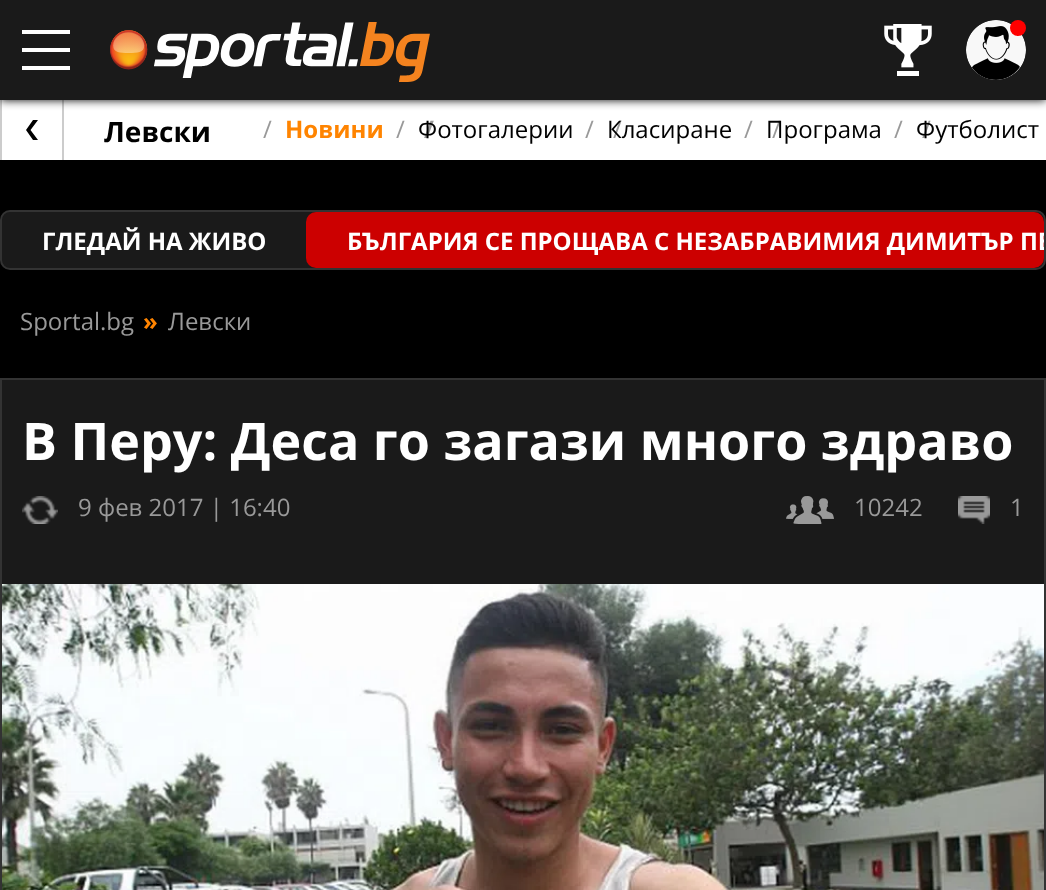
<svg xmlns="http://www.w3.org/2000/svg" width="1046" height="890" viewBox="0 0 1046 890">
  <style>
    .t1 { font: bold 28px Open Sans; fill: #000; }
    .t2 { font: 24px Open Sans; fill: #999; }
    .t3 { font: bold 24px Open Sans; fill: #ff8400; }
    .t4 { font: bold 24px Open Sans; fill: #999; }
    .t5 { font: 24px Open Sans; fill: #000; }
    .t6 { font: bold 24px Open Sans; fill: #fff; }
    .t7 { font: bold 52px Open Sans; fill: #fff; }
  </style>
  <defs>
    <clipPath id="clip1"><rect x="306" y="212" width="738" height="56" rx="10"/></clipPath>
  </defs>
  <rect width="100%" height="100%" fill="#000"/>
  <rect x="2" y="100" width="1044" height="60" fill="#fff"/>
  <rect x="62" y="100" width="2" height="60" fill="#ccc"/>
  <rect x="0" y="100" width="2" height="60" fill="#ccc"/>
  <rect x="0" y="0" width="1046" height="100" fill="#000000fc" filter="blur(5px)"/>
  <rect x="0" y="0" width="1046" height="100" fill="#1a1a1a"/>
  <path d="M22 48H70V52H22ZM22 30H70V34H22ZM22 66H70V70H22Z" fill="#fff" fill-rule="evenodd"/>
  <image x="110" y="22" width="320" height="60" href="images/1.png"/>
  <image x="884" y="24" width="48" height="52" href="images/2.png"/>
  <image x="966" y="20" width="60" height="60" href="images/3.png"/>
  <circle cx="1018" cy="28" r="8" fill="#f00"/>
  <path d="M38 140L30.5 130L38 120H33L26 130L33 140Z" fill="#000" fill-rule="evenodd"/>
  <text x="104" y="142" class="t1">Левски</text>
  <text x="263" y="138" class="t2">/</text>
  <text x="285" y="138" class="t3">Новини</text>
  <text x="424" y="138" class="t4">/</text>
  <text x="396" y="138" class="t2">/</text>
  <text x="418" y="138" class="t5">Фотогалерии</text>
  <text x="613" y="138" class="t2">/</text>
  <text x="585" y="138" class="t2">/</text>
  <text x="607" y="138" class="t5">Класиране</text>
  <text x="772" y="138" class="t2">/</text>
  <text x="744" y="138" class="t2">/</text>
  <text x="766" y="138" class="t5">Програма</text>
  <text x="922" y="138" class="t2">/</text>
  <text x="894" y="138" class="t2">/</text>
  <text x="916" y="138" class="t5">Футболист</text>
  <rect x="1" y="211" width="1044" height="58" rx="9" fill="#1a1a1a" stroke="#333" stroke-width="2"/>
  <text x="42" y="250" class="t6">ГЛЕДАЙ НА ЖИВО</text>
  <rect x="306" y="212" width="738" height="56" rx="10" fill="#c00"/>
  <g clip-path="url(#clip1)">
    <text x="347" y="250" class="t6">БЪЛГАРИЯ СЕ ПРОЩАВА С НЕЗАБРАВИМИЯ ДИМИТЪР ПЕ</text>
  </g>
  <text x="20" y="330" class="t2">Sportal.bg</text>
  <text x="143" y="330" class="t3">»</text>
  <text x="168" y="330" class="t2">Левски</text>
  <rect x="2" y="380" width="1042" height="204" fill="#1a1a1a"/>
  <rect x="1" y="379" width="1044" height="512" fill="none" stroke="#333" stroke-width="2"/>
  <text x="22" y="460" class="t7">В Перу: Деса го загази много здраво</text>
  <image x="22" y="496" width="36" height="28" href="images/4.png"/>
  <text x="78" y="516" class="t2">9 фев 2017 | 16:40</text>
  <image x="786" y="496" width="48" height="28" href="images/5.png"/>
  <text x="854" y="516" class="t2">10242</text>
  <image x="958" y="496" width="32" height="28" href="images/6.png"/>
  <text x="1010" y="516" class="t2">1</text>
  <image x="2" y="584" width="1042" height="306" href="images/7.png"/>
</svg>
